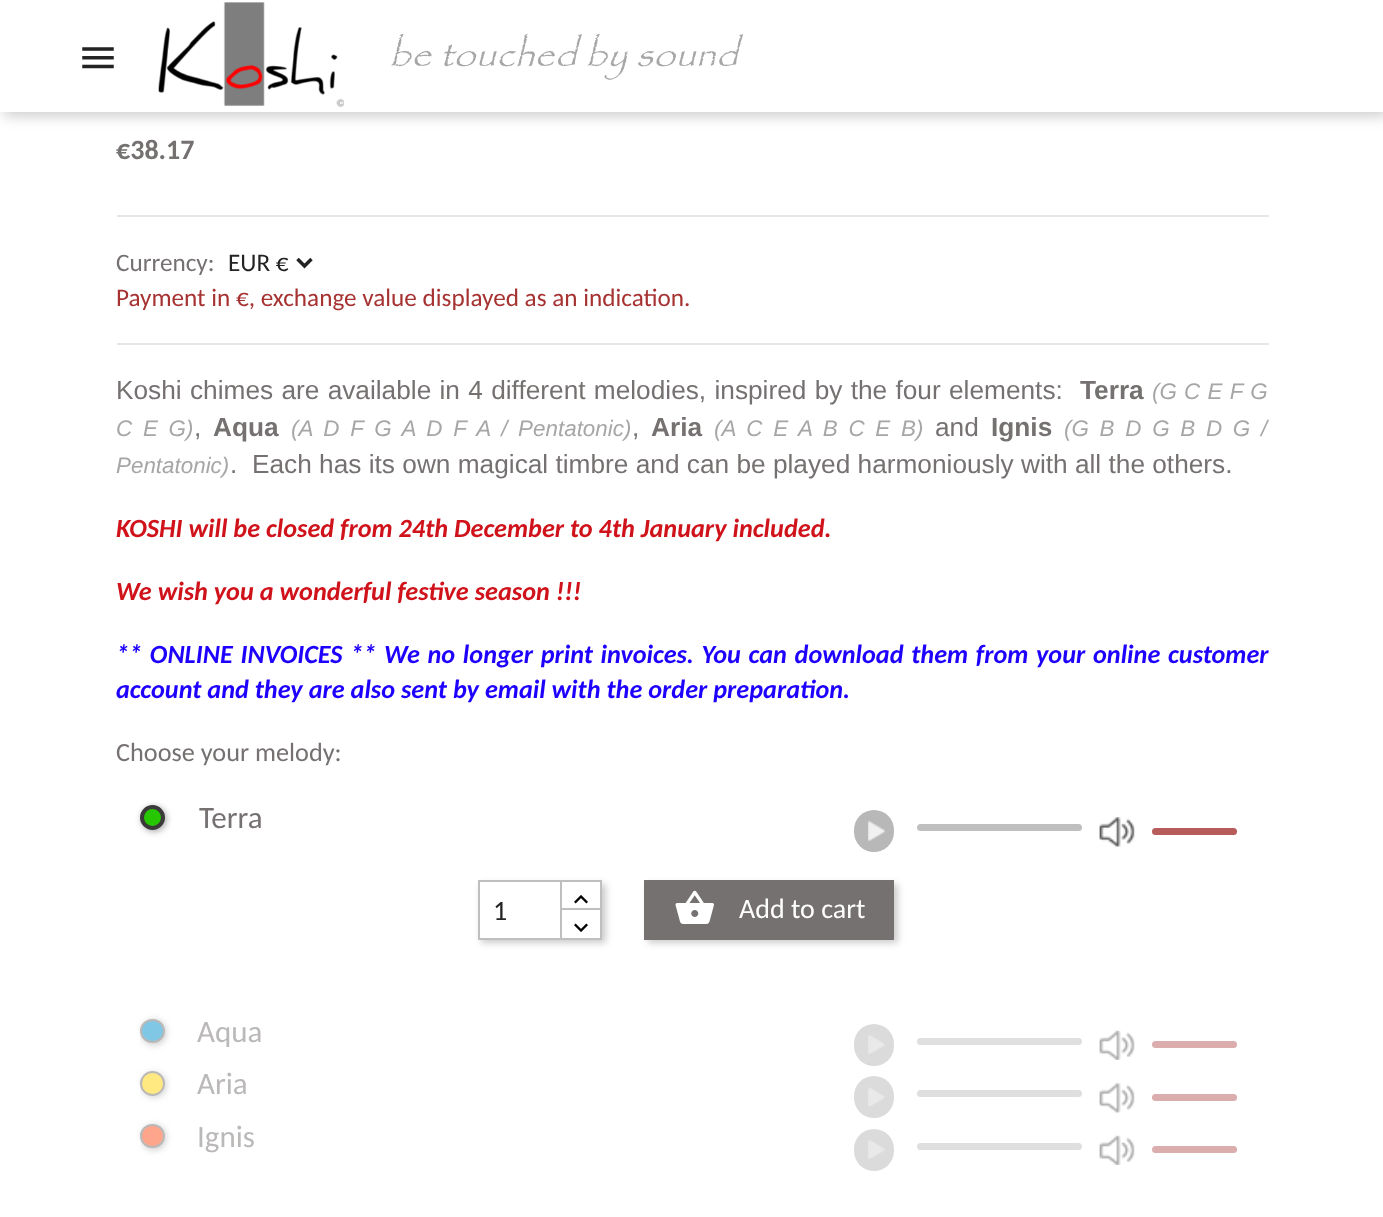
<svg xmlns="http://www.w3.org/2000/svg" width="1383" height="1217" viewBox="0 0 1383 1217">
  <style>
    .t1 { font: italic 39.25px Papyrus; fill: #a6a6a6; }
    .t2 { font: bold 28px Carlito; fill: #767171; }
    .t3 { font: 25.2px Carlito; fill: #767171; }
    .t4 { font: 25.2px Carlito; fill: #232323; }
    .t5 { font: 25.2px Carlito; fill: #a63232; }
    .t6 { font: 26.25px Liberation Sans; fill: #767171; }
    .t7 { font: bold 26.25px Liberation Sans; fill: #767171; }
    .t8 { font: italic 22.4px Liberation Sans; fill: #a6a6a6; }
    .t9 { font: italic bold 26.25px Carlito; fill: #d0121a; }
    .t10 { font: italic bold 26.25px Carlito; fill: #1e00ff; }
    .t11 { font: 26.25px Carlito; fill: #767171; }
    .t12 { font: 31px Carlito; fill: #767171; }
    .t13 { font: 31px Carlito; fill: #bbb8b8; }
    .t14 { font: 28px Carlito; fill: #232323; }
    .t15 { font: 28px Carlito; fill: #fff; }
  </style>
  <rect width="100%" height="100%" fill="#fff"/>
  <rect x="4" y="4" width="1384" height="112" fill="#00000033" filter="blur(7px)"/>
  <rect x="0" y="0" width="1383" height="112" fill="#fff"/>
  <image x="82" y="47" width="32" height="22" href="images/1.png"/>
  <image x="158" y="2" width="186" height="105" href="images/2.png"/>
  <text x="389" y="66" class="t1">be touched by sound</text>
  <text x="116" y="159" class="t2">€38.17</text>
  <rect x="117" y="215" width="1152" height="2" fill="#e6e6e6"/>
  <text x="116" y="271" class="t3">Currency:</text>
  <path d="M297.5 259L304.5 266L311.5 259" fill="none" stroke="#232323" stroke-width="3.5"/>
  <text x="228" y="271" class="t4">EUR €</text>
  <text x="116" y="306" class="t5">Payment in €, exchange value displayed as an indication.</text>
  <rect x="117" y="343" width="1152" height="2" fill="#e6e6e6"/>
  <text x="116" y="399" word-spacing="1" class="t6">Koshi chimes are available in 4 different melodies, inspired by the four elements:</text>
  <text x="1080" y="399" class="t7">Terra</text>
  <text x="1152" y="399" word-spacing="1" class="t8">(G C E F G</text>
  <text x="116" y="436" word-spacing="4.5" class="t8">C E G)</text>
  <text x="194" y="436" class="t6">,</text>
  <text x="213" y="436" class="t7">Aqua</text>
  <text x="291" y="436" word-spacing="4.5" class="t8">(A D F G A D F A / Pentatonic)</text>
  <text x="632" y="436" class="t6">,</text>
  <text x="651" y="436" class="t7">Aria</text>
  <text x="714" y="436" word-spacing="4.5" class="t8">(A C E A B C E B)</text>
  <text x="935" y="436" class="t6">and</text>
  <text x="991" y="436" class="t7">Ignis</text>
  <text x="1064" y="436" word-spacing="4.5" class="t8">(G B D G B D G /</text>
  <text x="116" y="473" class="t8">Pentatonic)</text>
  <text x="230" y="473" class="t6">.</text>
  <text x="252" y="473" class="t6">Each has its own magical timbre and can be played harmoniously with all the others.</text>
  <text x="116" y="537" class="t9">KOSHI will be closed from 24th December to 4th January included.</text>
  <text x="116" y="600" class="t9">We wish you a wonderful festive season !!!</text>
  <text x="116" y="663" word-spacing="1.75" class="t10">** ONLINE INVOICES ** We no longer print invoices. You can download them from your online customer</text>
  <text x="116" y="698" class="t10">account and they are also sent by email with the order preparation.</text>
  <text x="116" y="761" class="t11">Choose your melody:</text>
  <rect x="142" y="807" width="24" height="24" rx="12" fill="#00000066" filter="blur(3.5px)"/>
  <circle cx="152.5" cy="817.5" r="10.5" fill="#26c700" stroke="#3b3939" stroke-width="4"/>
  <text x="199" y="828" class="t12">Terra</text>
  <rect x="854" y="810" width="40" height="42" rx="20" fill="#b8b8b8"/>
  <image x="868" y="821" width="17" height="20" href="images/3.png"/>
  <rect x="917" y="824" width="165" height="7" rx="3.5" fill="#bfbfbf"/>
  <image x="1099" y="817" width="36" height="30" href="images/4.png"/>
  <rect x="1152" y="828" width="85" height="7" rx="3.5" fill="#b85b5b"/>
  <rect x="142" y="1020" width="24" height="25" rx="12" fill="#80808066" filter="blur(3.5px)"/>
  <rect x="117" y="1026" width="23" height="22" rx="11" fill="#fff"/>
  <rect x="141" y="1020" width="23" height="22" rx="11" fill="#80c6e5" stroke="#bbb8b8" stroke-width="2"/>
  <text x="197" y="1042" class="t13">Aqua</text>
  <rect x="854" y="1024" width="40" height="42" rx="20" fill="#dbdbdb"/>
  <image x="868" y="1035" width="17" height="19" href="images/5.png"/>
  <rect x="917" y="1038" width="165" height="7" rx="3.5" fill="#dfdfdf"/>
  <image x="1099" y="1030" width="36" height="30" href="images/6.png"/>
  <rect x="1152" y="1041" width="85" height="7" rx="3.5" fill="#dbadad"/>
  <rect x="142" y="1073" width="24" height="24" rx="12" fill="#80808066" filter="blur(3.5px)"/>
  <circle cx="128.5" cy="1089.5" r="11.5" fill="#fff"/>
  <circle cx="152.5" cy="1083.5" r="11.5" fill="#ffe980" stroke="#bbb8b8" stroke-width="2"/>
  <text x="197" y="1094" class="t13">Aria</text>
  <rect x="854" y="1076" width="40" height="42" rx="20" fill="#dbdbdb"/>
  <image x="868" y="1087" width="17" height="20" href="images/7.png"/>
  <rect x="917" y="1090" width="165" height="7" rx="3.5" fill="#dfdfdf"/>
  <image x="1099" y="1083" width="36" height="30" href="images/8.png"/>
  <rect x="1152" y="1094" width="85" height="7" rx="3.5" fill="#dbadad"/>
  <rect x="142" y="1125" width="24" height="25" rx="12" fill="#80808066" filter="blur(3.5px)"/>
  <rect x="117" y="1131" width="23" height="22" rx="11" fill="#fff"/>
  <rect x="141" y="1125" width="23" height="22" rx="11" fill="#ffa58c" stroke="#bbb8b8" stroke-width="2"/>
  <text x="197" y="1147" class="t13">Ignis</text>
  <rect x="854" y="1129" width="40" height="42" rx="20" fill="#dbdbdb"/>
  <image x="868" y="1140" width="17" height="19" href="images/5.png"/>
  <rect x="917" y="1143" width="165" height="7" rx="3.5" fill="#dfdfdf"/>
  <image x="1099" y="1135" width="36" height="30" href="images/6.png"/>
  <rect x="1152" y="1146" width="85" height="7" rx="3.5" fill="#dbadad"/>
  <rect x="481" y="884" width="125" height="59" fill="#00000033" filter="blur(3.5px)"/>
  <rect x="479" y="881" width="82" height="58" fill="#fff" stroke="#bfbfbf" stroke-width="2"/>
  <text x="493" y="920" class="t14">1</text>
  <rect x="562" y="882" width="38" height="26" fill="#fff"/>
  <rect x="561" y="881" width="40" height="30" fill="none" stroke="#bfbfbf" stroke-width="2"/>
  <image x="574" y="895" width="14" height="9" href="images/9.png"/>
  <rect x="561" y="909" width="40" height="30" fill="#fff" stroke="#bfbfbf" stroke-width="2"/>
  <image x="574" y="923" width="14" height="9" href="images/10.png"/>
  <rect x="648" y="884" width="250" height="59" fill="#00000033" filter="blur(3.5px)"/>
  <rect x="644" y="880" width="250" height="60" fill="#767171"/>
  <image x="675" y="890" width="39" height="34" href="images/11.png"/>
  <text x="739" y="918" class="t15">Add to cart</text>
</svg>
